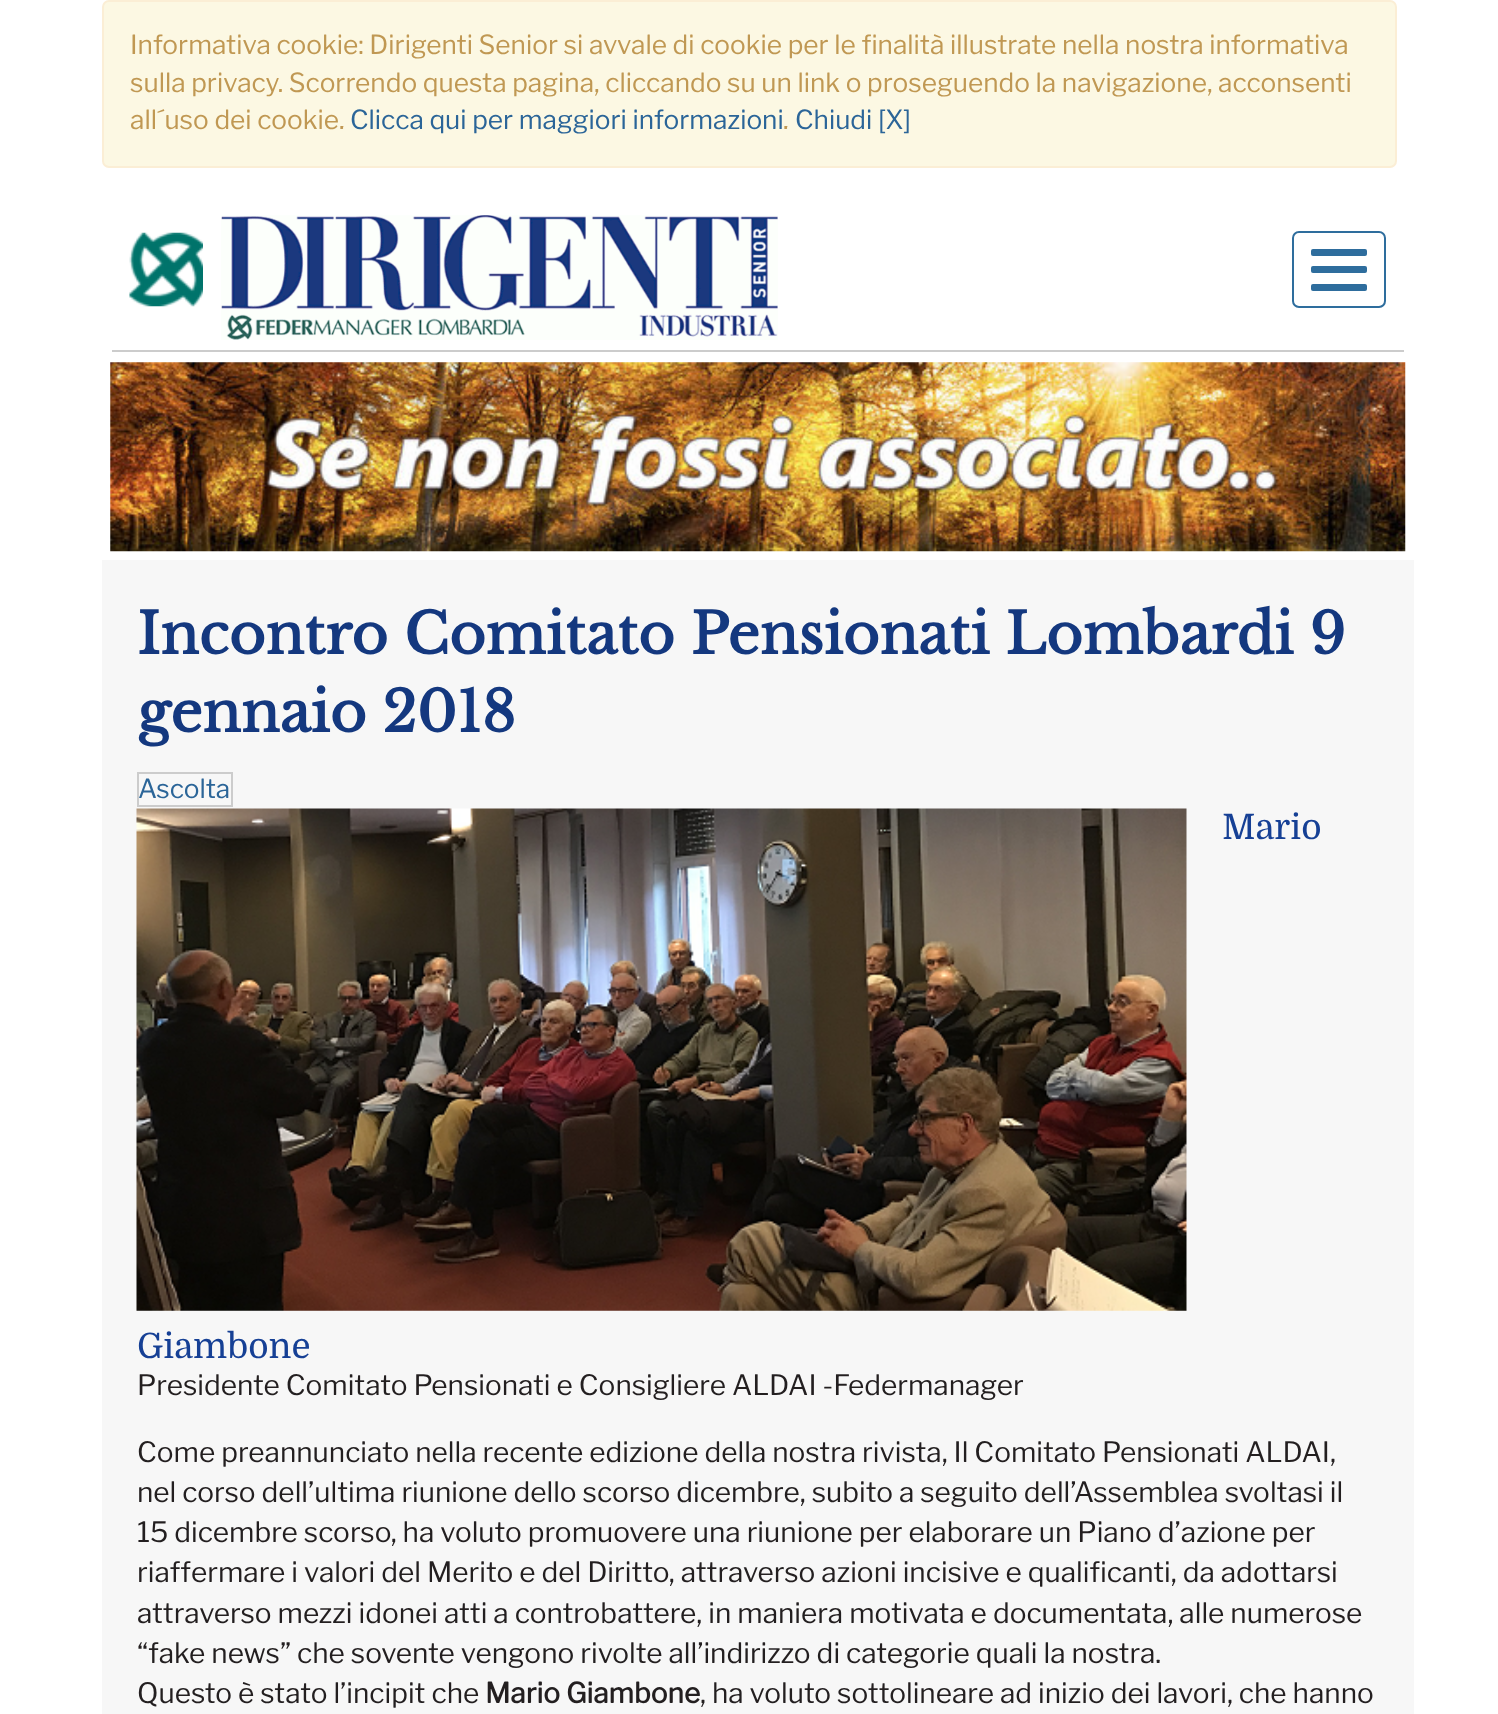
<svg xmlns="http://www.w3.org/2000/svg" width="1498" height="1714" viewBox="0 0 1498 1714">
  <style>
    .t1 { font: 100 26.25px Libre Franklin; fill: #c09853; }
    .t2 { font: 100 26.25px Libre Franklin; fill: #2b6598; }
    .t3 { font: bold 56px Libre Baskerville; fill: #14387f; }
    .t4 { font: 35px Domine; fill: #164095; }
    .t5 { font: 100 28px Libre Franklin; fill: #231f20; }
    .t6 { font: bold 28px Libre Franklin; fill: #231f20; }
  </style>
  <rect width="100%" height="100%" fill="#fff"/>
  <rect x="103" y="1" width="1293" height="166" rx="6" fill="#fcf8e3" stroke="#fbeed5" stroke-width="2"/>
  <text x="130" y="54" class="t1">Informativa cookie: Dirigenti Senior si avvale di cookie per le finalità illustrate nella nostra informativa</text>
  <text x="130" y="92" class="t1">sulla privacy. Scorrendo questa pagina, cliccando su un link o proseguendo la navigazione, acconsenti</text>
  <text x="130" y="129" class="t1">all´uso dei cookie.</text>
  <text x="350" y="129" class="t2">Clicca qui per maggiori informazioni</text>
  <text x="783" y="129" class="t1">.</text>
  <text x="795" y="129" class="t2">Chiudi [X]</text>
  <rect x="112" y="350" width="1292" height="2" fill="#ccc"/>
  <image x="129" y="232" width="74" height="75" href="images/1.png"/>
  <image x="221" y="215" width="557" height="125" href="images/2.png"/>
  <rect x="1293" y="232" width="92" height="75" rx="6" fill="none" stroke="#2e6d9d" stroke-width="2"/>
  <rect x="1311" y="249" width="56" height="7" rx="2" fill="#2e6d9d"/>
  <rect x="1311" y="266" width="56" height="7" rx="2" fill="#2e6d9d"/>
  <rect x="1311" y="284" width="56" height="7" rx="2" fill="#2e6d9d"/>
  <image x="110" y="362" width="1296" height="190" href="images/3.png"/>
  <rect x="102" y="560" width="1312" height="1154" fill="#f7f7f7"/>
  <text x="137" y="654" class="t3">Incontro Comitato Pensionati Lombardi 9</text>
  <text x="137" y="732" class="t3">gennaio 2018</text>
  <text x="138" y="798" class="t2">Ascolta</text>
  <rect x="137" y="772" width="94" height="2" fill="#ccc"/>
  <rect x="137" y="805" width="94" height="2" fill="#ccc"/>
  <rect x="137" y="772" width="2" height="35" fill="#ccc"/>
  <rect x="231" y="772" width="2" height="35" fill="#ccc"/>
  <image x="136" y="808" width="1051" height="503" href="images/4.png"/>
  <text x="1222" y="839" class="t4">Mario</text>
  <text x="137" y="1358" class="t4">Giambone</text>
  <text x="137" y="1395" class="t5">Presidente Comitato Pensionati e Consigliere ALDAI -Federmanager</text>
  <text x="137" y="1462" class="t5">Come preannunciato nella recente edizione della nostra rivista, Il Comitato Pensionati ALDAI,</text>
  <text x="137" y="1502" class="t5">nel corso dell’ultima riunione dello scorso dicembre, subito a seguito dell’Assemblea svoltasi il</text>
  <text x="137" y="1542" class="t5">15 dicembre scorso, ha voluto promuovere una riunione per elaborare un Piano d’azione per</text>
  <text x="137" y="1582" class="t5">riaffermare i valori del Merito e del Diritto, attraverso azioni incisive e qualificanti, da adottarsi</text>
  <text x="137" y="1623" class="t5">attraverso mezzi idonei atti a controbattere, in maniera motivata e documentata, alle numerose</text>
  <text x="137" y="1663" class="t5">“fake news” che sovente vengono rivolte all’indirizzo di categorie quali la nostra.</text>
  <text x="137" y="1703" class="t5">Questo è stato l’incipit che</text>
  <text x="485" y="1703" class="t6">Mario Giambone</text>
  <text x="700" y="1703" class="t5">, ha voluto sottolineare ad inizio dei lavori, che hanno</text>
</svg>
